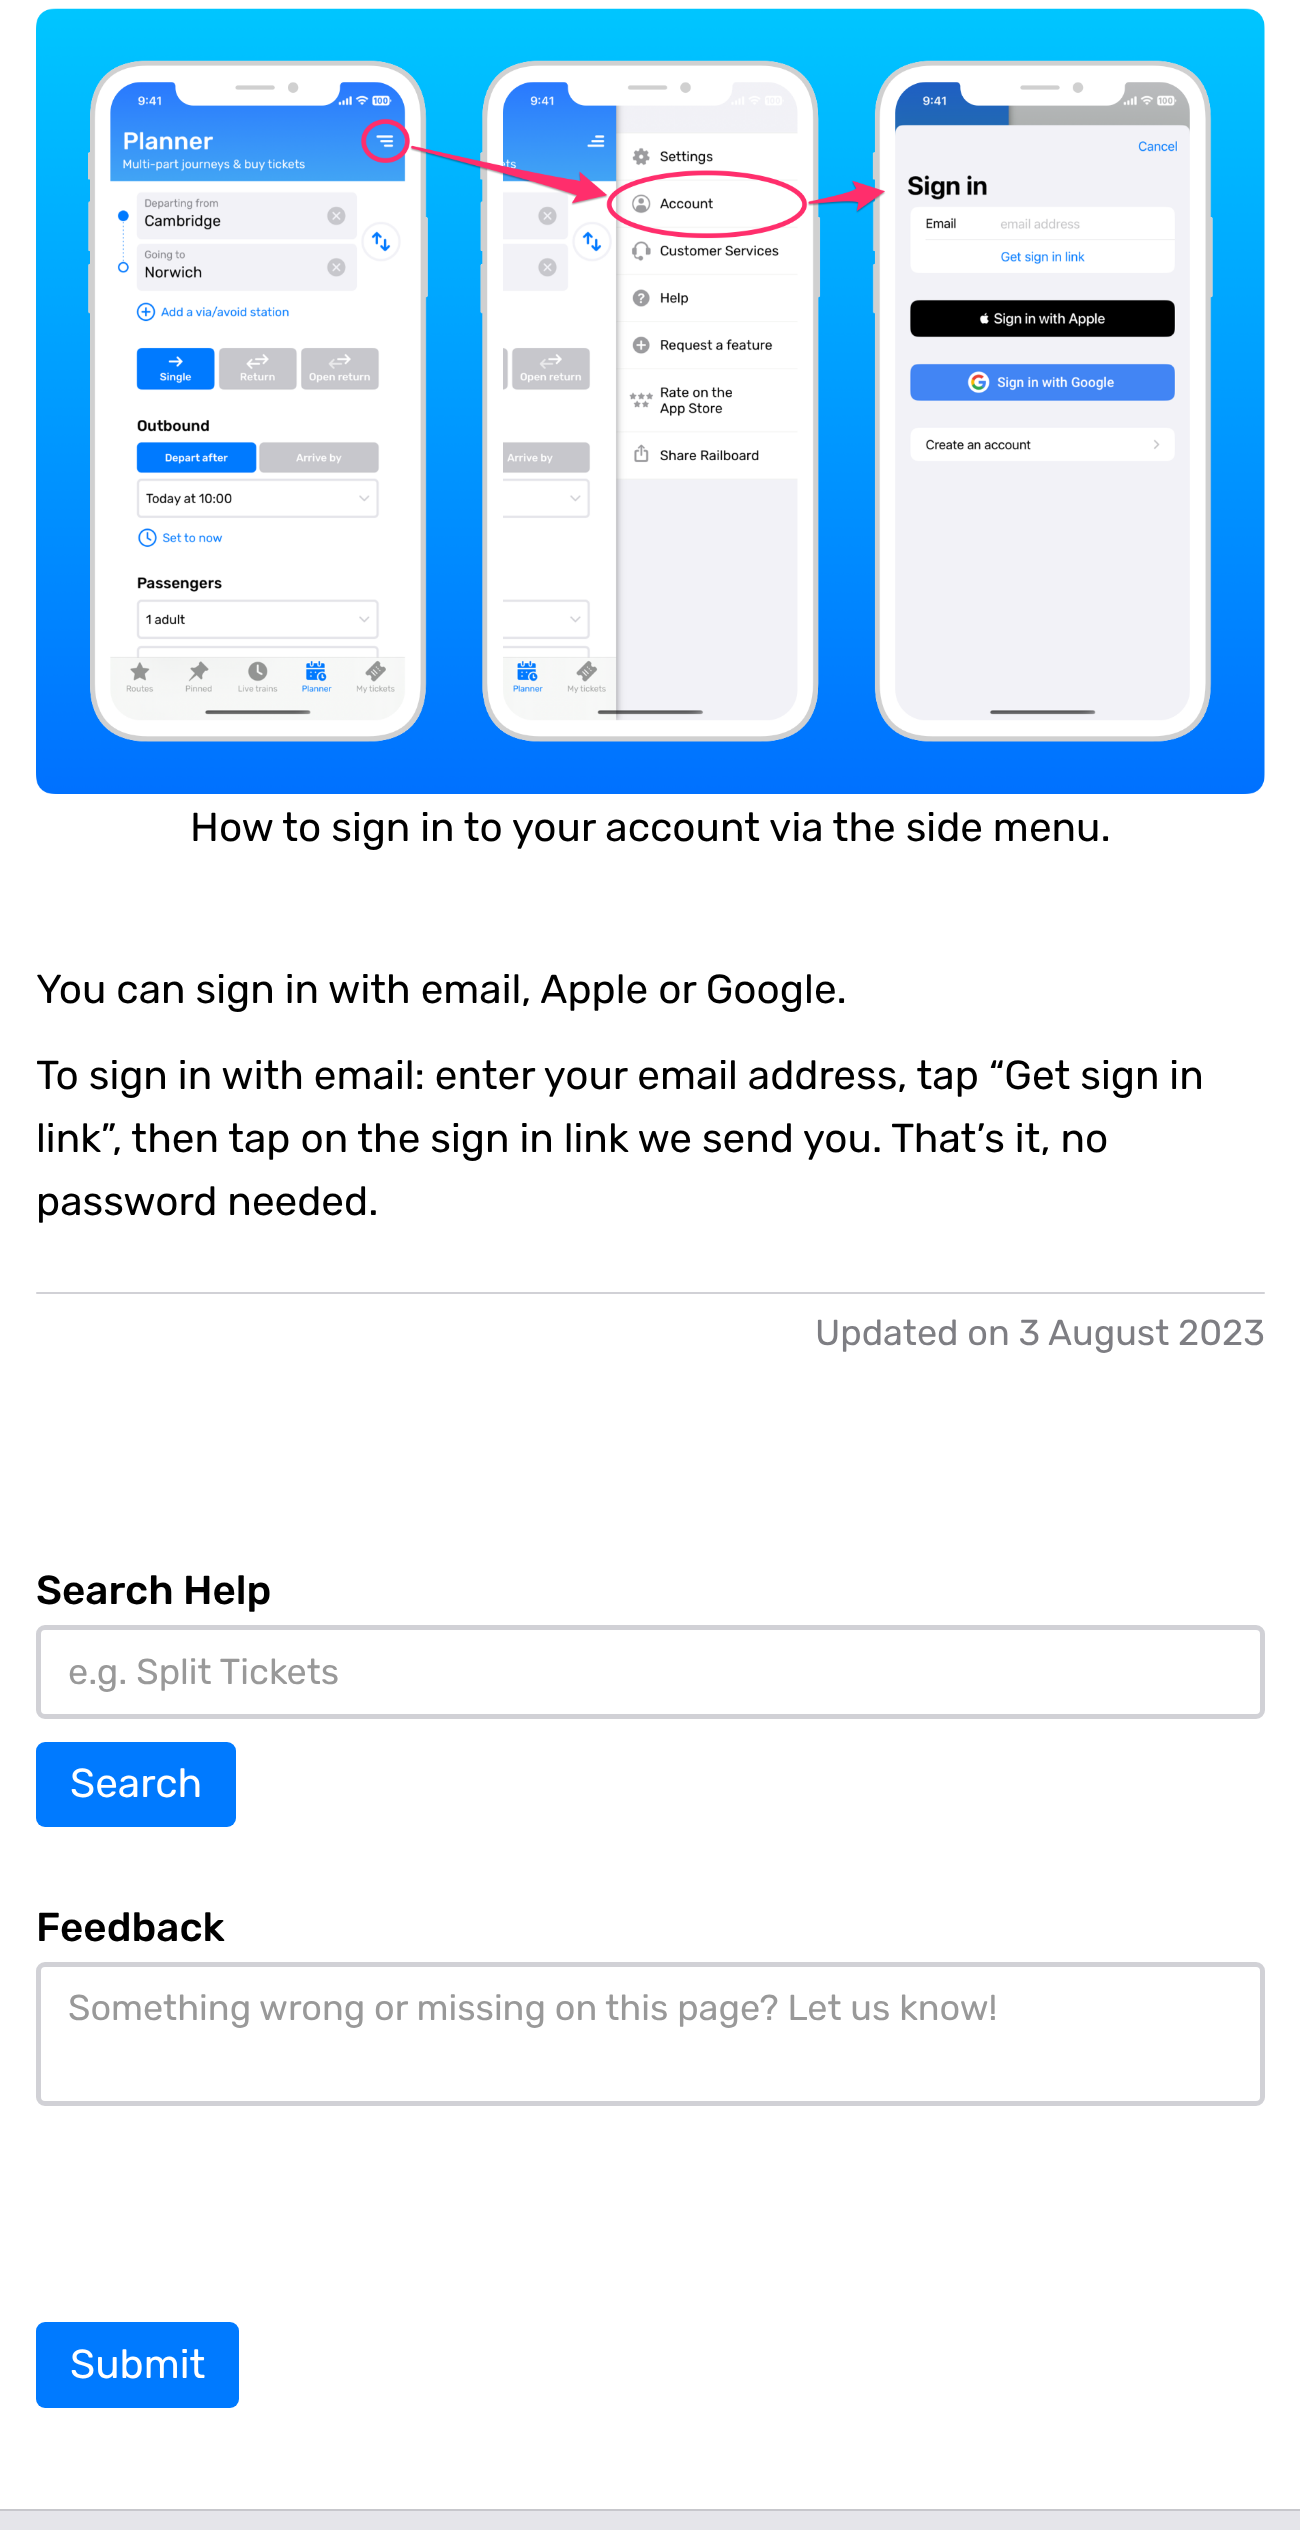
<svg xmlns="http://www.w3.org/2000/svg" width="1300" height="2530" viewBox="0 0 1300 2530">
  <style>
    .t1 { font: 40.5px Rubik; fill: #000; }
    .t2 { font: 36px Rubik; fill: #7e7e83; }
    .t3 { font: 500 40.5px Rubik; fill: #000; }
    .t4 { font: 36px Rubik; fill: #999; }
    .t5 { font: 40.5px Rubik; fill: #fff; }
  </style>
  <rect width="100%" height="100%" fill="#fff"/>
  <image x="36" y="8" width="1229" height="786" href="images/1.png"/>
  <text x="190" y="841" class="t1">How to sign in to your account via the side menu.</text>
  <text x="36" y="1003" class="t1">You can sign in with email, Apple or Google.</text>
  <text x="36" y="1089" class="t1">To sign in with email: enter your email address, tap “Get sign in</text>
  <text x="36" y="1152" class="t1">link”, then tap on the sign in link we send you. That’s it, no</text>
  <text x="36" y="1215" class="t1">password needed.</text>
  <rect x="36" y="1292" width="1229" height="2" rx="1" fill="#d1d1d6"/>
  <text x="815" y="1345" class="t2">Updated on 3 August 2023</text>
  <text x="36" y="1604" class="t3">Search Help</text>
  <rect x="38.5" y="1627.5" width="1224" height="89" rx="6.5" fill="none" stroke="#d1d1d6" stroke-width="5"/>
  <text x="68" y="1684" class="t4">e.g. Split Tickets</text>
  <rect x="36" y="1742" width="200" height="85" rx="9" fill="#007aff"/>
  <text x="70" y="1797" class="t5">Search</text>
  <text x="36" y="1941" class="t3">Feedback</text>
  <rect x="38.5" y="1964.5" width="1224" height="139" rx="6.5" fill="none" stroke="#d1d1d6" stroke-width="5"/>
  <text x="68" y="2020" class="t4">Something wrong or missing on this page? Let us know!</text>
  <rect x="36" y="2322" width="203" height="86" rx="9" fill="#007aff"/>
  <text x="70" y="2378" class="t5">Submit</text>
  <rect x="0" y="2511" width="1300" height="19" fill="#e5e5ea"/>
  <rect x="0" y="2509" width="1300" height="2" fill="#c7c7cc"/>
</svg>
